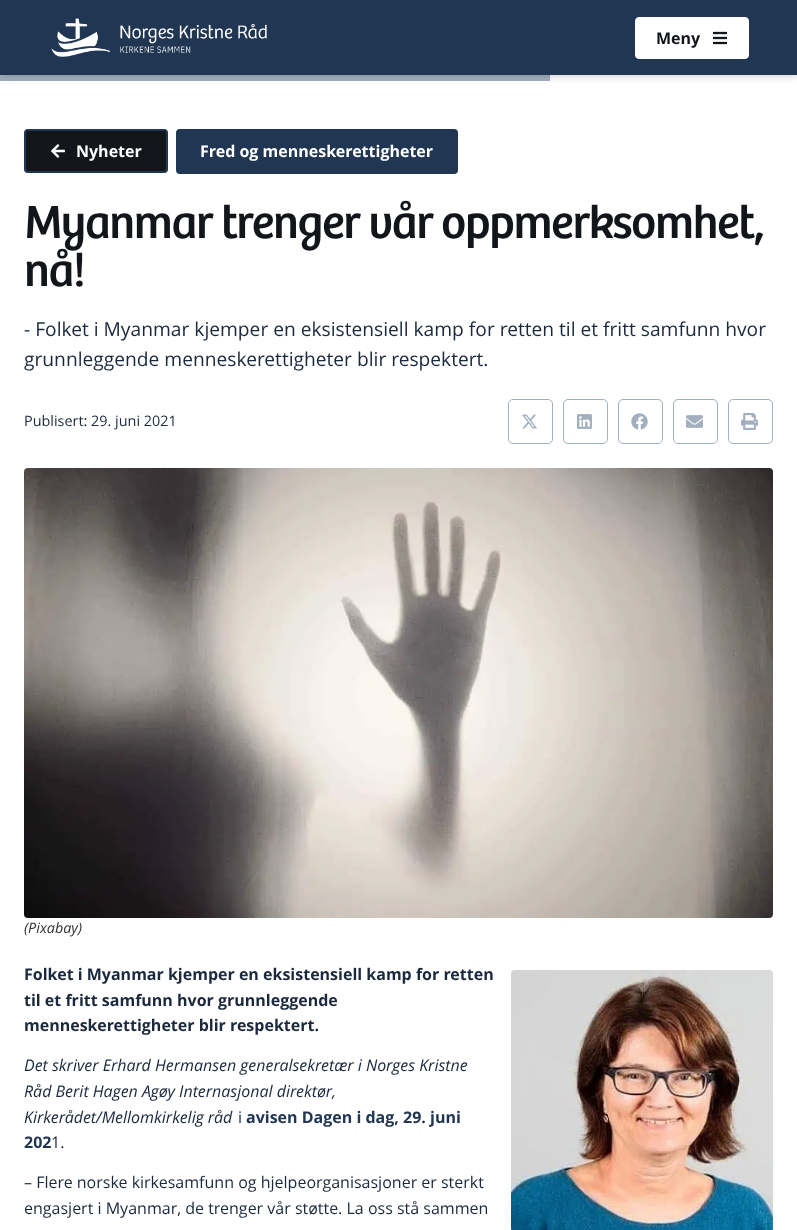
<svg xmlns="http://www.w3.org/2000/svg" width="797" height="1230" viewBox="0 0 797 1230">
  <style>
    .t1 { font: bold 16px Open Sans; fill: #12151a; }
    .t2 { font: bold 16px Open Sans; fill: #fff; }
    .t3 { font: 48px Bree; letter-spacing: -1.4px; fill: #12151a; }
    .t4 { font: 19.2px Open Sans; fill: #1a293d; }
    .t5 { font: 14.4px Open Sans; fill: #1a293d; }
    .t6 { font: italic 14.4px Open Sans; fill: #333; }
    .t7 { font: bold 16px Open Sans; fill: #1a293d; }
    .t8 { font: italic 16px Open Sans; fill: #1a293d; }
    .t9 { font: 16px Open Sans; fill: #1a293d; }
    .t10 { font: bold 16px Open Sans; fill: #203653; }
  </style>
  <rect width="100%" height="100%" fill="#fff"/>
  <rect x="0" y="75" width="550" height="6" fill="#a3afbf"/>
  <rect x="0" y="0" width="797" height="75" fill="#00000040" filter="blur(5px)"/>
  <rect x="0" y="0" width="797" height="75" fill="#203653"/>
  <image x="51" y="18" width="216" height="39" href="images/1.png"/>
  <rect x="635.5" y="17.5" width="113" height="41" rx="3.5" fill="#fff" stroke="#fff"/>
  <text x="656" y="44" class="t1">Meny</text>
  <image x="713" y="31" width="14" height="14" href="images/2.png"/>
  <rect x="25" y="130" width="142" height="42" rx="3" fill="#12151a" stroke="#203653" stroke-width="2"/>
  <image x="51" y="144" width="14" height="14" href="images/3.png"/>
  <text x="76" y="157" class="t2">Nyheter</text>
  <rect x="176" y="129" width="282" height="45" rx="4" fill="#203653"/>
  <text x="200" y="157" class="t2">Fred og menneskerettigheter</text>
  <text x="24" y="238" class="t3">Myanmar trenger vår oppmerksomhet,</text>
  <text x="24" y="286" class="t3">nå!</text>
  <text x="24" y="336" class="t4">- Folket i Myanmar kjemper en eksistensiell kamp for retten til et fritt samfunn hvor</text>
  <text x="24" y="366" class="t4">grunnleggende menneskerettigheter blir respektert.</text>
  <text x="24" y="426" class="t5">Publisert: 29. juni 2021</text>
  <rect x="508.5" y="399.5" width="44" height="44" rx="4.5" fill="none" stroke="#a3afbf"/>
  <image x="522" y="414" width="15" height="15" href="images/4.png"/>
  <rect x="563.5" y="399.5" width="44" height="44" rx="4.5" fill="none" stroke="#a3afbf"/>
  <image x="577" y="414" width="15" height="15" href="images/5.png"/>
  <rect x="618.5" y="399.5" width="44" height="44" rx="4.5" fill="none" stroke="#a3afbf"/>
  <image x="631" y="413" width="17" height="17" href="images/6.png"/>
  <rect x="673.5" y="399.5" width="44" height="44" rx="4.5" fill="none" stroke="#a3afbf"/>
  <image x="686" y="415" width="17" height="13" href="images/7.png"/>
  <rect x="728.5" y="399.5" width="44" height="44" rx="4.5" fill="none" stroke="#a3afbf"/>
  <image x="741" y="413" width="17" height="17" href="images/8.png"/>
  <image x="24" y="468" width="749" height="450" href="images/9.png"/>
  <text x="24" y="933" class="t6">(Pixabay)</text>
  <text x="24" y="980" class="t7">Folket i Myanmar kjemper en eksistensiell kamp for retten</text>
  <text x="24" y="1006" class="t7">til et fritt samfunn hvor grunnleggende</text>
  <text x="24" y="1031" class="t7">menneskerettigheter blir respektert.</text>
  <image x="511" y="970" width="262" height="260" href="images/10.png"/>
  <text x="24" y="1071" class="t8">Det skriver Erhard Hermansen generalsekretær i Norges Kristne</text>
  <text x="24" y="1097" class="t8">Råd Berit Hagen Agøy Internasjonal direktør,</text>
  <text x="24" y="1123" class="t8">Kirkerådet/Mellomkirkelig råd</text>
  <text x="238" y="1123" class="t9">i</text>
  <text x="246" y="1123" class="t10">avisen Dagen i dag, 29. juni</text>
  <text x="24" y="1148" class="t10">202</text>
  <text x="51" y="1148" class="t9">1.</text>
  <text x="24" y="1188" class="t9">– Flere norske kirkesamfunn og hjelpeorganisasjoner er sterkt</text>
  <text x="24" y="1214" class="t9">engasjert i Myanmar, de trenger vår støtte. La oss stå sammen</text>
</svg>
